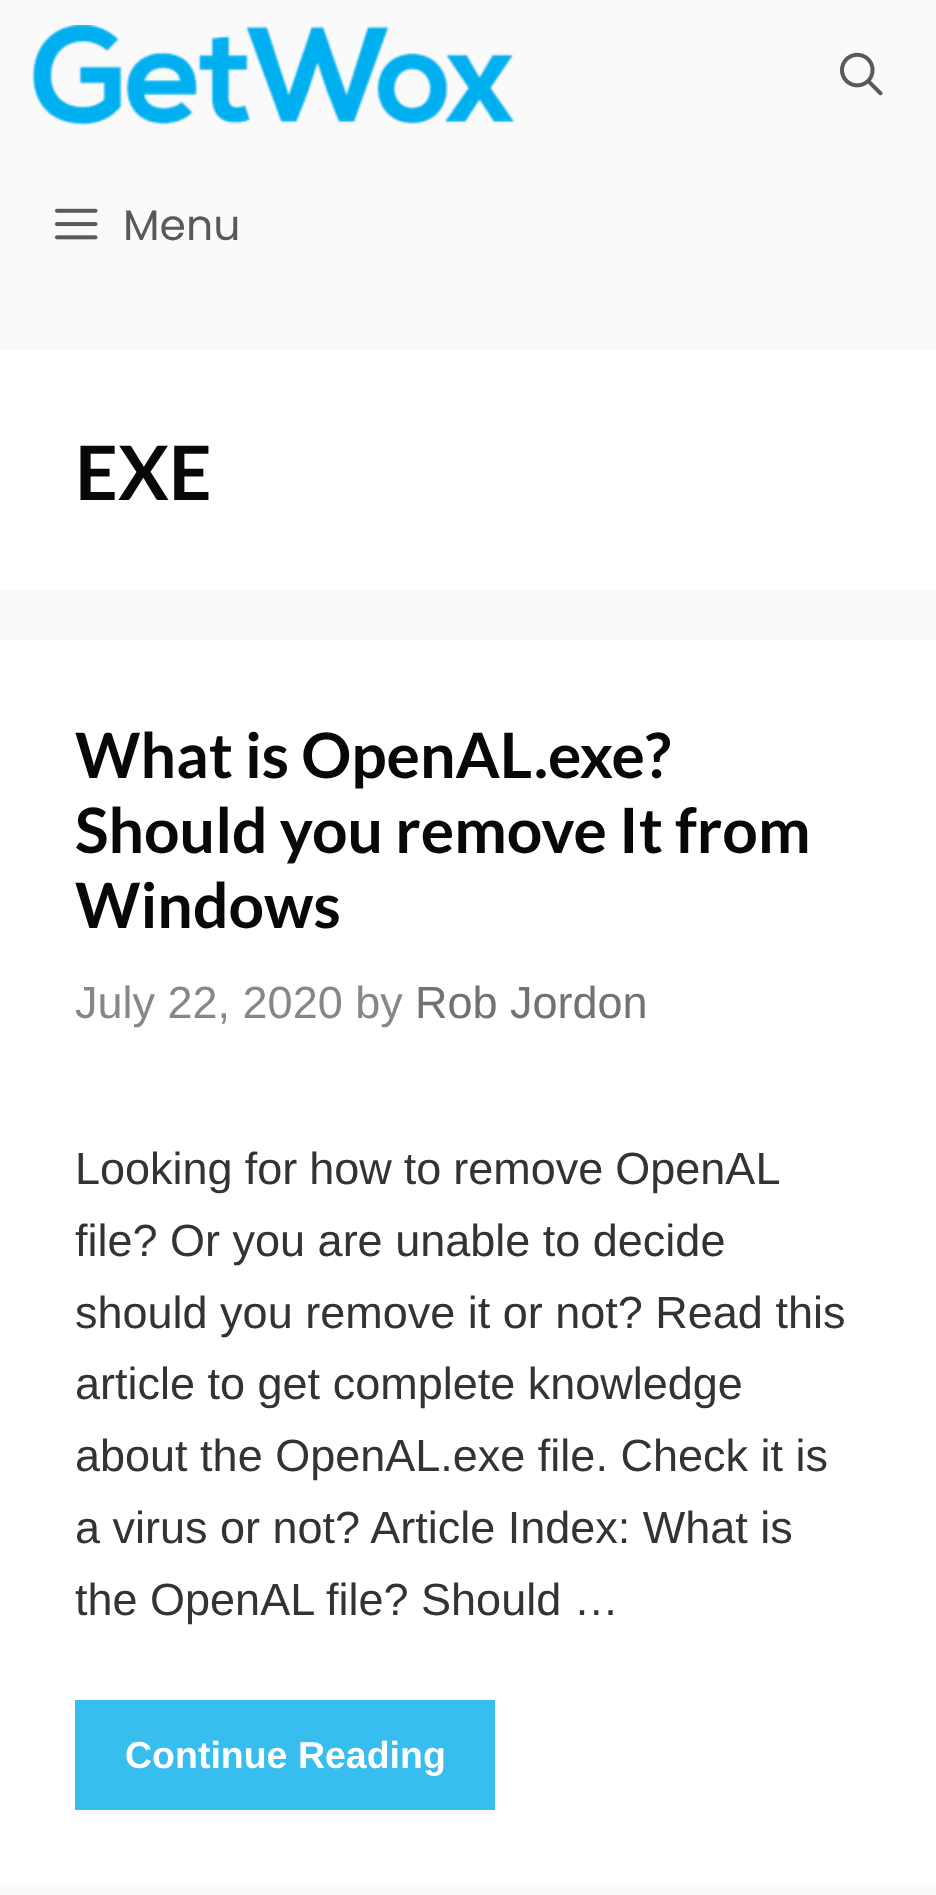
<svg xmlns="http://www.w3.org/2000/svg" width="936" height="1895" viewBox="0 0 936 1895">
  <style>
    .t1 { font: 42.5px Poppins; fill: #595959; }
    .t2 { font: bold 75px Lato; fill: #0a0707; }
    .t3 { font: bold 62.5px Lato; fill: #0a0707; }
    .t4 { font: 45px Liberation Sans; fill: #878787; }
    .t5 { font: 45px Liberation Sans; fill: #727272; }
    .t6 { font: 45px Liberation Sans; fill: #333; }
    .t7 { font: bold 37.5px Liberation Sans; fill: #fff; }
  </style>
  <rect width="100%" height="100%" fill="#fafafa"/>
  <image x="31" y="25" width="484" height="100" href="images/1.png"/>
  <image x="840" y="52" width="43" height="44" href="images/2.png"/>
  <image x="55" y="208" width="43" height="32" href="images/3.png"/>
  <text x="123" y="240" class="t1">Menu</text>
  <rect x="0" y="350" width="936" height="240" fill="#fff"/>
  <text x="75" y="500" class="t2">EXE</text>
  <rect x="0" y="640" width="936" height="1245" fill="#fff"/>
  <text x="75" y="778" class="t3">What is OpenAL.exe?</text>
  <text x="75" y="853" class="t3">Should you remove It from</text>
  <text x="75" y="928" class="t3">Windows</text>
  <text x="75" y="1018" class="t4">July 22, 2020 by</text>
  <text x="415" y="1018" class="t5">Rob Jordon</text>
  <text x="75" y="1184" word-spacing="-0.5" class="t6">Looking for how to remove OpenAL</text>
  <text x="75" y="1256" class="t6">file? Or you are unable to decide</text>
  <text x="75" y="1328" class="t6">should you remove it or not? Read this</text>
  <text x="75" y="1399" class="t6">article to get complete knowledge</text>
  <text x="75" y="1471" class="t6">about the OpenAL.exe file. Check it is</text>
  <text x="75" y="1543" class="t6">a virus or not? Article Index: What is</text>
  <text x="75" y="1615" class="t6">the OpenAL file? Should …</text>
  <rect x="75" y="1700" width="420" height="110" fill="#37beef"/>
  <text x="125" y="1768" class="t7">Continue Reading</text>
</svg>
